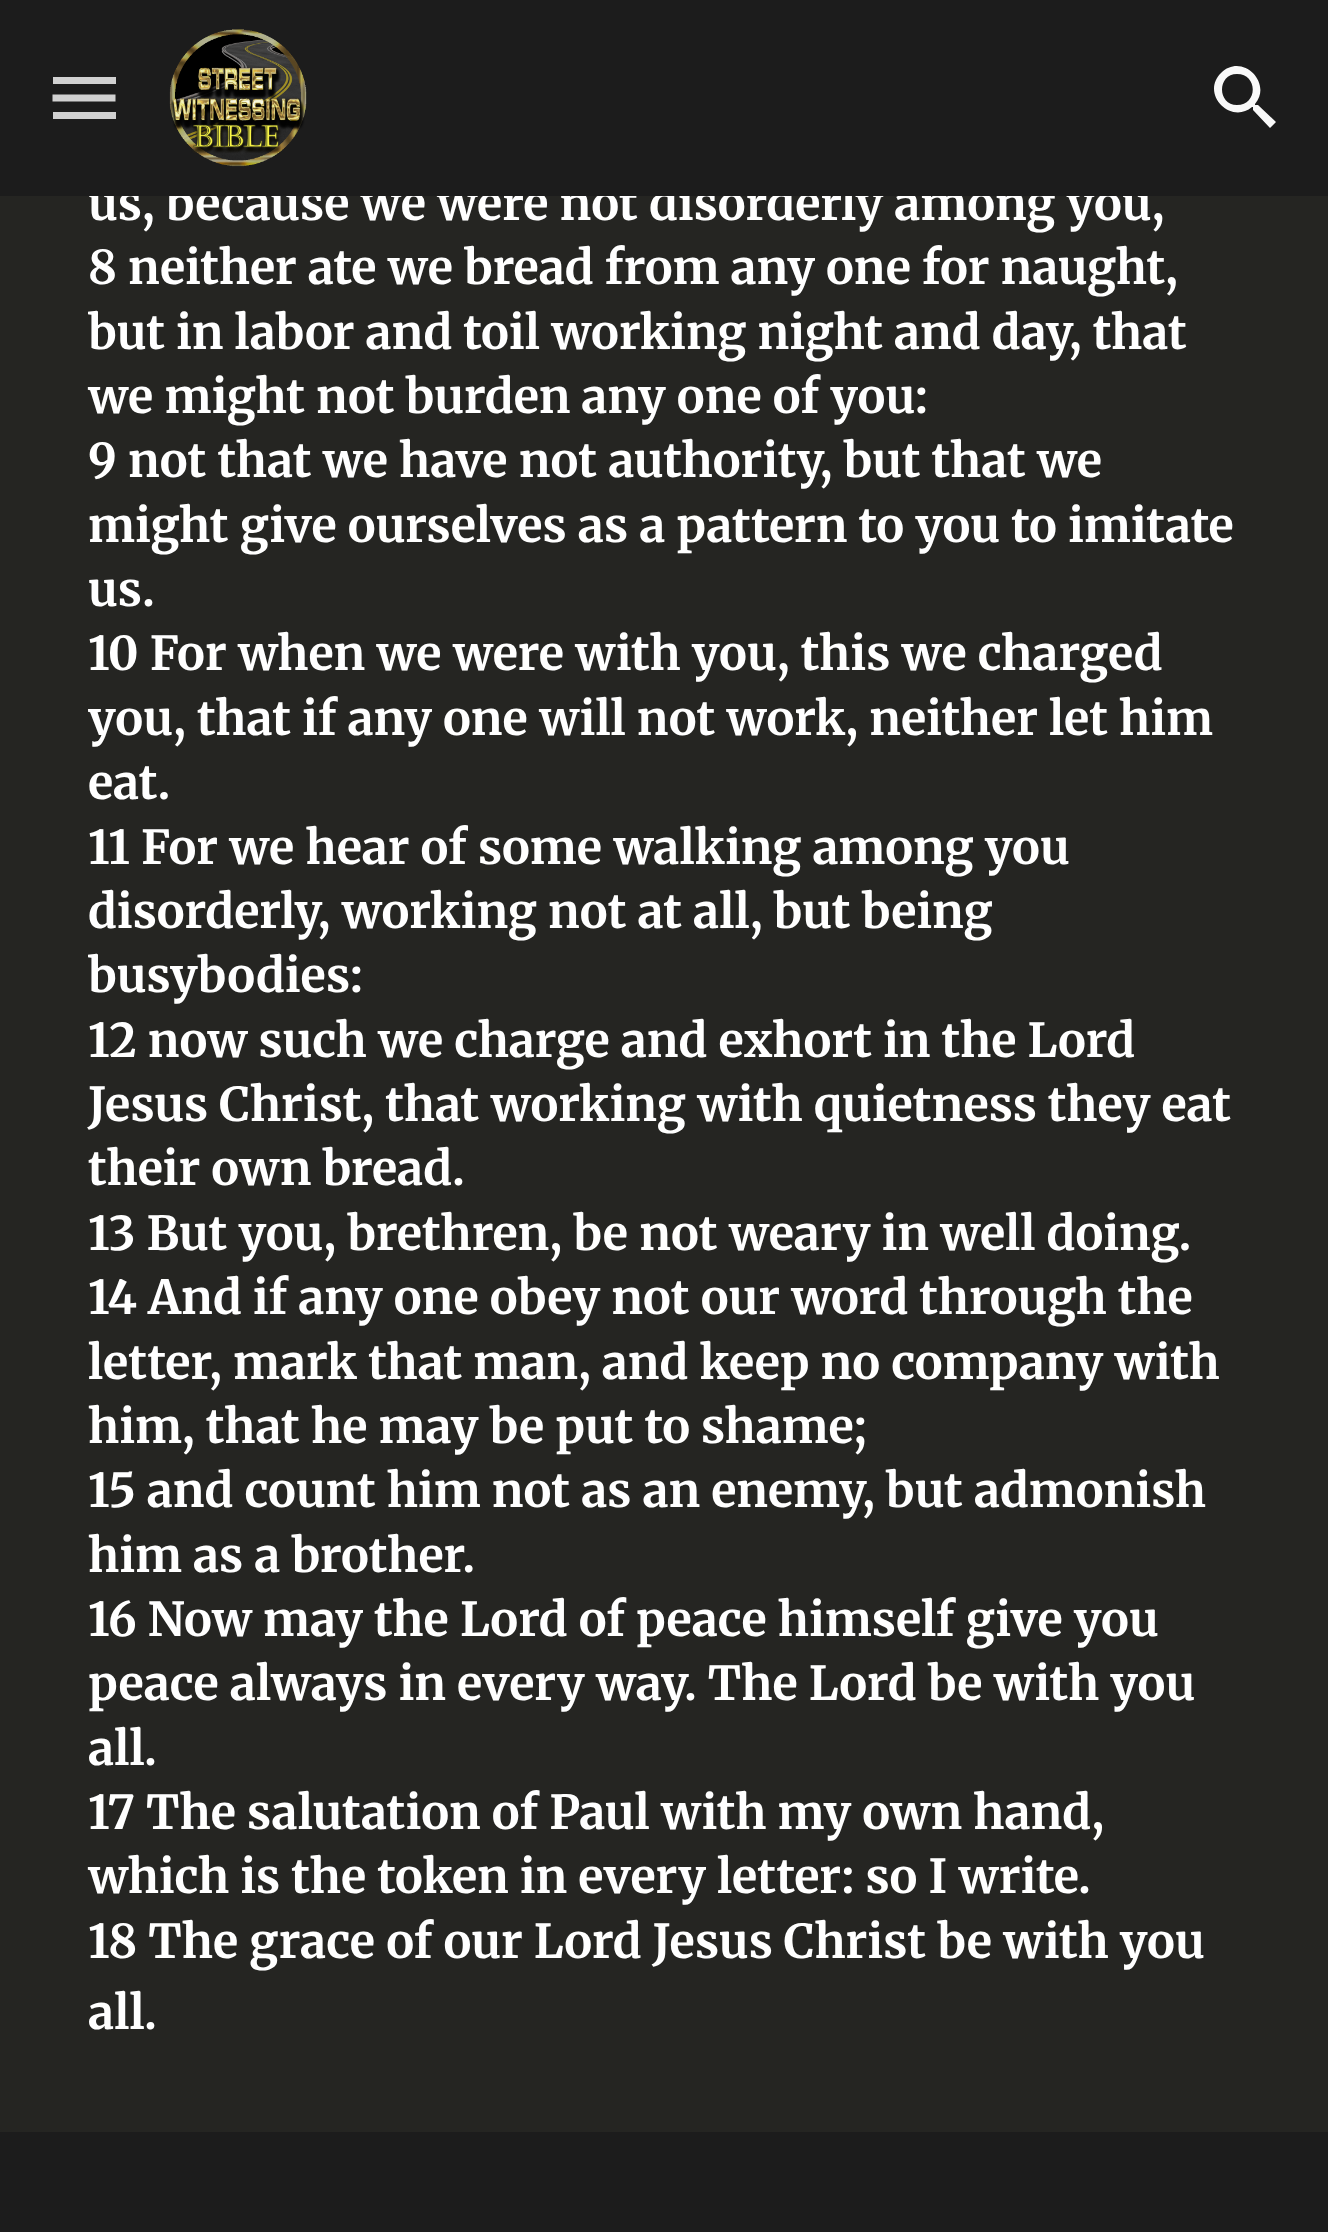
<svg xmlns="http://www.w3.org/2000/svg" width="1328" height="2232" viewBox="0 0 1328 2232">
  <style>
    .t1 { font: bold 46.7px Merriweather; fill: #fff; }
  </style>
  <rect width="100%" height="100%" fill="#1c1c1c"/>
  <rect x="53" y="77" width="63" height="7" fill="#d1d1d1"/>
  <path d="M52.5 98H115.5" fill="none" stroke="#d1d1d1" stroke-width="7"/>
  <rect x="53" y="112" width="63" height="7" fill="#d1d1d1"/>
  <image x="169" y="29" width="138" height="138" href="images/1.png"/>
  <path d="M1258 105H1255V104C1273 83 1242 52 1221 73C1200 94 1231 125 1252 107H1253V110L1270 128L1276 122ZM1237 105C1217 105 1217 74 1237 74C1258 74 1258 105 1237 105Z" fill="#f9f9f9"/>
  <rect x="0" y="196" width="1328" height="1936" fill="#252522"/>
  <text x="88" y="220" class="t1">us, because we were not disorderly among you,</text>
  <rect x="89" y="181" width="1059" height="15" fill="#1c1c1c"/>
  <text x="88" y="284" class="t1">8 neither ate we bread from any one for naught,</text>
  <text x="88" y="349" class="t1">but in labor and toil working night and day, that</text>
  <text x="88" y="413" class="t1">we might not burden any one of you:</text>
  <text x="88" y="477" class="t1">9 not that we have not authority, but that we</text>
  <text x="88" y="542" class="t1">might give ourselves as a pattern to you to imitate</text>
  <text x="88" y="606" class="t1">us.</text>
  <text x="88" y="670" class="t1">10 For when we were with you, this we charged</text>
  <text x="88" y="735" class="t1">you, that if any one will not work, neither let him</text>
  <text x="88" y="799" class="t1">eat.</text>
  <text x="88" y="864" class="t1">11 For we hear of some walking among you</text>
  <text x="88" y="928" class="t1">disorderly, working not at all, but being</text>
  <text x="88" y="992" class="t1">busybodies:</text>
  <text x="88" y="1057" class="t1">12 now such we charge and exhort in the Lord</text>
  <text x="88" y="1121" class="t1">Jesus Christ, that working with quietness they eat</text>
  <text x="88" y="1185" class="t1">their own bread.</text>
  <text x="88" y="1250" class="t1">13 But you, brethren, be not weary in well doing.</text>
  <text x="88" y="1314" class="t1">14 And if any one obey not our word through the</text>
  <text x="88" y="1379" class="t1">letter, mark that man, and keep no company with</text>
  <text x="88" y="1443" class="t1">him, that he may be put to shame;</text>
  <text x="88" y="1507" class="t1">15 and count him not as an enemy, but admonish</text>
  <text x="88" y="1572" class="t1">him as a brother.</text>
  <text x="88" y="1636" class="t1">16 Now may the Lord of peace himself give you</text>
  <text x="88" y="1700" class="t1">peace always in every way. The Lord be with you</text>
  <text x="88" y="1765" class="t1">all.</text>
  <text x="88" y="1829" class="t1">17 The salutation of Paul with my own hand,</text>
  <text x="88" y="1893" class="t1">which is the token in every letter: so I write.</text>
  <text x="88" y="1958" class="t1">18 The grace of our Lord Jesus Christ be with you</text>
  <text x="88" y="2029" class="t1">all.</text>
</svg>
